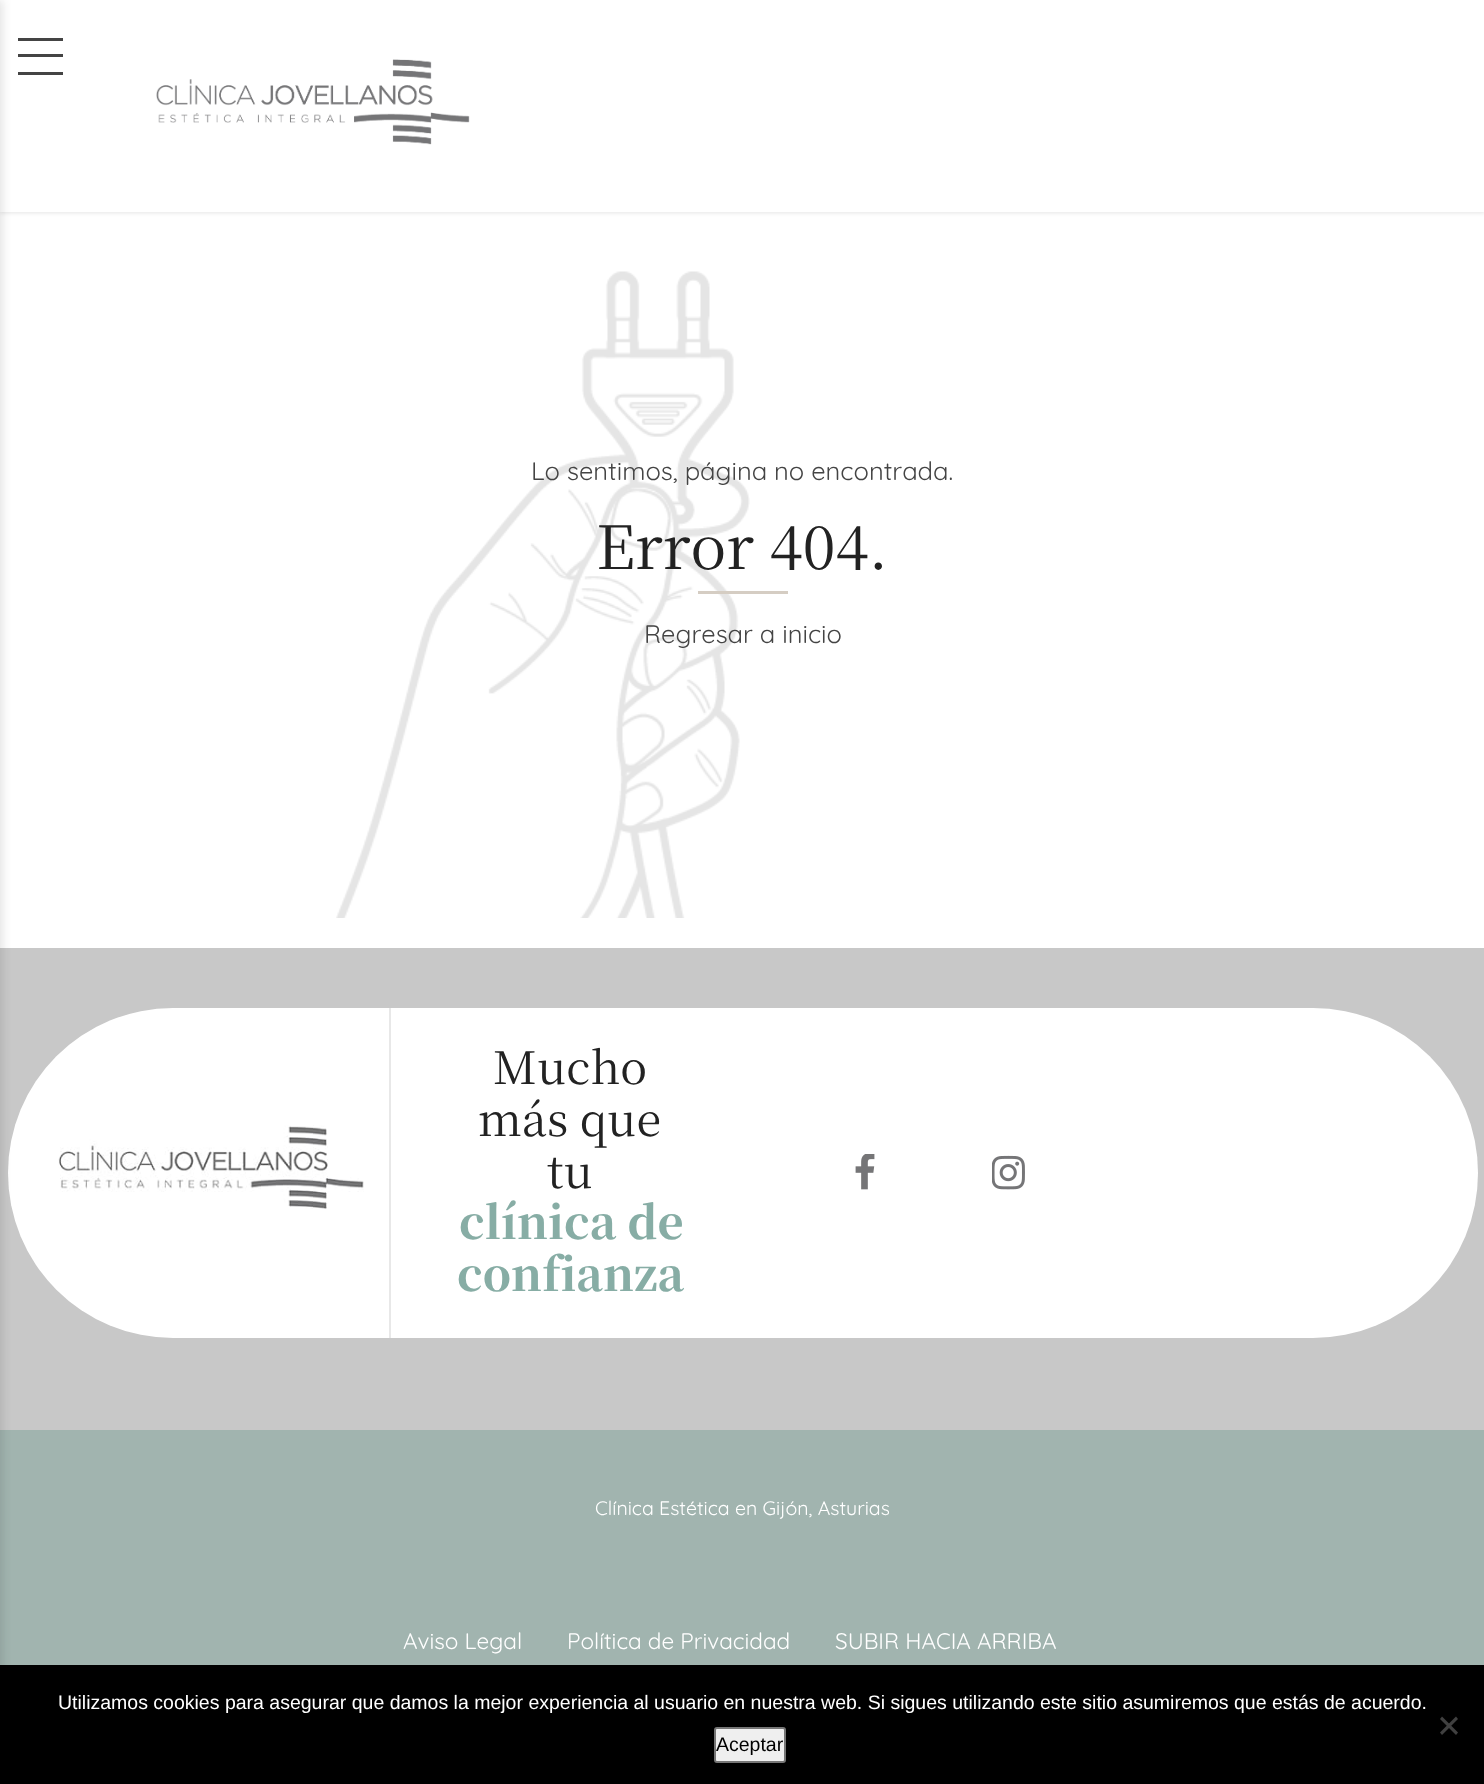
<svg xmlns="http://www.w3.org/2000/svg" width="1484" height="1784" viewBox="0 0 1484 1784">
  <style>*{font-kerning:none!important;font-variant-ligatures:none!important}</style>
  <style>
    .t1 { font: 25.5px Quicksand; fill: #444; }
    .t2 { font: 60px Noto Serif TC; fill: #222; }
    .t3 { font: 45px Noto Serif TC; fill: #222; }
    .t4 { font: 800 45px Noto Serif TC; fill: #87ada5; }
    .t5 { font: 19.5px Quicksand; fill: #fff; }
    .t6 { font: 22.5px Quicksand; fill: #fff; }
    .t7 { font: 19.5px Liberation Sans; fill: #fff; }
    .t8 { font: 19.5px Liberation Sans; fill: #000; }
  </style>
  <defs>
    <clipPath id="clip1"><path d="M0 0H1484V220H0ZM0 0H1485V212H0Z" clip-rule="evenodd"/></clipPath>
  </defs>
  <rect width="100%" height="100%" fill="#fff"/>
  <rect x="0" y="948" width="1484" height="482" fill="#c8c8c8"/>
  <rect x="8" y="1008" width="1470" height="330" rx="165" fill="#fff"/>
  <rect x="0" y="1430" width="1484" height="235" fill="#a1b4af"/>
  <rect x="-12" y="0" width="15" height="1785" fill="#0000001a" filter="blur(4px)"/>
  <g clip-path="url(#clip1)">
    <rect x="0" y="2" width="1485" height="211" fill="#0000001a" filter="blur(2px)"/>
  </g>
  <rect x="18" y="38" width="45" height="3" fill="#444"/>
  <rect x="18" y="54" width="45" height="3" fill="#444"/>
  <rect x="18" y="72" width="45" height="3" fill="#444"/>
  <image x="156" y="59" width="314" height="86" href="images/1.png"/>
  <image x="336" y="271" width="414" height="647" href="images/2.png"/>
  <text x="531" y="480" class="t1">Lo sentimos, página no encontrada.</text>
  <text x="596" y="569" class="t2">Error 404.</text>
  <rect x="698" y="591" width="90" height="3" fill="#d5cdc3"/>
  <text x="644" y="643" class="t1">Regresar a inicio</text>
  <rect x="389" y="1008" width="2" height="330" fill="#e8e8e8"/>
  <image x="58" y="1125" width="306" height="84" href="images/3.png"/>
  <text x="493" y="1084" class="t3">Mucho</text>
  <text x="478" y="1136" class="t3">más que</text>
  <text x="547" y="1188" class="t3">tu</text>
  <text x="459" y="1239" class="t4">clínica de</text>
  <text x="457" y="1291" class="t4">confianza</text>
  <image x="855" y="1154" width="20" height="36" href="images/4.png"/>
  <image x="992" y="1155" width="33" height="35" href="images/5.png"/>
  <text x="595" y="1515" class="t5">Clínica Estética en Gijón, Asturias</text>
  <text x="403" y="1649" class="t6">Aviso Legal</text>
  <text x="567" y="1649" class="t6">Política de Privacidad</text>
  <text x="835" y="1649" class="t6">SUBIR HACIA ARRIBA</text>
  <rect x="0" y="1665" width="1484" height="119" fill="#000"/>
  <text x="58" y="1709" class="t7">Utilizamos cookies para asegurar que damos la mejor experiencia al usuario en nuestra web. Si sigues utilizando este sitio asumiremos que estás de acuerdo.</text>
  <path d="M1456 1716.5L1458 1719L1442 1735L1440 1732.5Z" fill="#404040"/>
  <path d="M1440 1719L1442 1716.5L1458 1732.5L1456 1735Z" fill="#404040"/>
  <rect x="715" y="1728" width="70" height="34" rx="2" fill="#efefef" stroke="#767676" stroke-width="2"/>
  <text x="716" y="1751" class="t8">Aceptar</text>
</svg>
